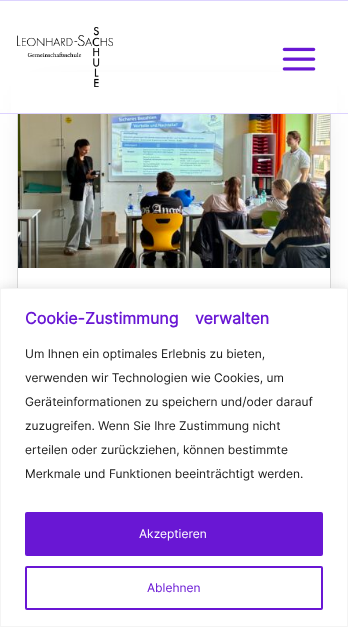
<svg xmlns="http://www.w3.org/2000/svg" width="348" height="627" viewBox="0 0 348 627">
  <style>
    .t1 { font: bold 16px Inter; fill: #6917d4; }
    .t2 { font: 12px Inter; fill: #181818; }
    .t3 { font: 12px Inter; fill: #fff; }
    .t4 { font: 12px Inter; fill: #6917d4; }
  </style>
  <defs>
    <clipPath id="clip1"><path d="M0 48H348V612H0ZM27 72H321C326.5 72 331 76.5 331 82V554C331 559.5 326.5 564 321 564H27C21.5 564 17 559.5 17 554V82C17 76.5 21.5 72 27 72Z" clip-rule="evenodd"/></clipPath>
  </defs>
  <rect width="100%" height="100%" fill="#fff"/>
  <g clip-path="url(#clip1)">
    <rect x="42" y="109" width="264" height="442" fill="#0000004d" filter="blur(20px)"/>
  </g>
  <rect x="17.5" y="72.5" width="313" height="491" fill="none" stroke="#d8d8d8"/>
  <rect x="11" y="72" width="326" height="41" fill="#fff"/>
  <rect x="0" y="0" width="348" height="1" fill="#ddd3ff"/>
  <rect x="0" y="113" width="348" height="1" fill="#ddd3ff"/>
  <image x="17" y="27" width="96" height="60" href="images/1.png"/>
  <image x="282" y="47" width="34" height="24" href="images/2.png"/>
  <image x="18" y="114" width="312" height="154" href="images/3.png"/>
  <rect x="0" y="287" width="348" height="339" fill="#acabab4d" filter="blur(5px)"/>
  <rect x="0.5" y="288.5" width="347" height="338" fill="#fff" stroke="#f4f4f4"/>
  <text x="25" y="324" word-spacing="12" class="t1">Cookie-Zustimmung verwalten</text>
  <text x="25" y="358" class="t2">Um Ihnen ein optimales Erlebnis zu bieten,</text>
  <text x="25" y="382" class="t2">verwenden wir Technologien wie Cookies, um</text>
  <text x="25" y="406" class="t2">Geräteinformationen zu speichern und/oder darauf</text>
  <text x="25" y="430" class="t2">zuzugreifen. Wenn Sie Ihre Zustimmung nicht</text>
  <text x="25" y="454" class="t2">erteilen oder zurückziehen, können bestimmte</text>
  <text x="25" y="478" class="t2">Merkmale und Funktionen beeinträchtigt werden.</text>
  <rect x="26" y="513" width="296" height="42" rx="1" fill="#6917d4" stroke="#6917d4" stroke-width="2"/>
  <text x="139" y="538" class="t3">Akzeptieren</text>
  <rect x="26" y="567" width="296" height="42" rx="1" fill="none" stroke="#6917d4" stroke-width="2"/>
  <text x="147" y="592" class="t4">Ablehnen</text>
</svg>
